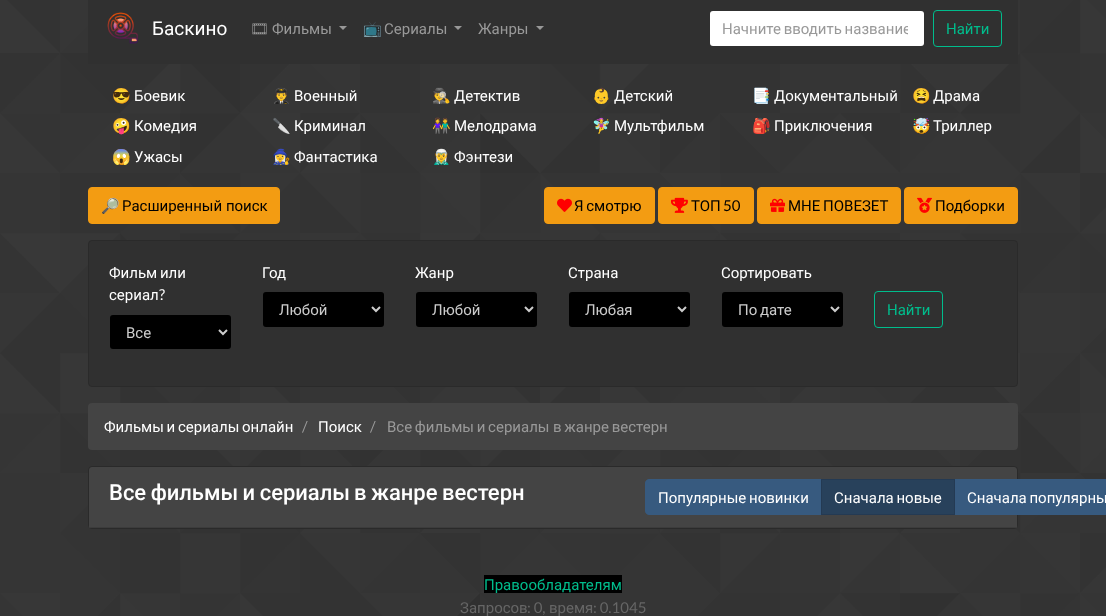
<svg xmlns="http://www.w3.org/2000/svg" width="1106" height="616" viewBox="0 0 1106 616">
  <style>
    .t1 { font: 19px Roboto; fill: #fff; }
    .t2 { font: 15px Noto Emoji; fill: #999; }
    .t3 { font: 15px Roboto; fill: #999; }
    .t4 { font: 15px Noto Color Emoji; fill: #999; }
    .t5 { font: 15px Roboto; fill: #00bc8c; }
    .t6 { font: 15px Noto Color Emoji; fill: #fff; }
    .t7 { font: 15px Roboto; fill: #fff; }
    .t8 { font: 15px Noto Color Emoji; fill: #000; }
    .t9 { font: 15px Roboto; fill: #000; }
    .t10 { font: 15px Lato; fill: #000; }
    .t11 { font: 15px Lato; fill: #fff; }
    .t12 { font: 15px Roboto; fill: #ccc; }
    .t13 { font: 15px Lato; fill: #999; }
    .t14 { font: 500 22px Roboto; fill: #fff; }
    .t15 { font: 15px Roboto; fill: #666; }
    .t16 { font: 15px Lato; fill: #666; }
  </style>
  <defs>
    <clipPath id="clip1"><rect x="722" y="19" width="186" height="19"/></clipPath>
  </defs>
  <rect width="100%" height="100%" fill="#fff"/>
  <image x="0" y="0" width="1106" height="616" href="images/1.png"/>
  <rect x="88" y="0" width="930" height="64" fill="#303030"/>
  <image x="107" y="12" width="31" height="32" href="images/2.png"/>
  <text x="152" y="35" class="t1">Баскино</text>
  <text x="250" y="34" class="t2">🎞</text>
  <text x="272" y="34" class="t3">Фильмы</text>
  <path d="M339 26H347L343 30Z" fill="#989898"/>
  <text x="363" y="34" class="t4">📺</text>
  <text x="384" y="34" class="t3">Сериалы</text>
  <path d="M454 26H462L458 30Z" fill="#989898"/>
  <text x="478" y="34" class="t3">Жанры</text>
  <path d="M536 26H544L540 30Z" fill="#989898"/>
  <rect x="710" y="11" width="214" height="35" rx="3" fill="#fff"/>
  <g clip-path="url(#clip1)">
    <text x="722" y="34" word-spacing="-1" class="t3">Начните вводить название</text>
  </g>
  <rect x="933.5" y="10.5" width="68" height="36" rx="3.5" fill="none" stroke="#00bc8c"/>
  <text x="946" y="34" class="t5">Найти</text>
  <text x="112" y="101" class="t6">😎</text>
  <text x="134" y="101" class="t7">Боевик</text>
  <text x="272" y="101" class="t6">👨‍✈️</text>
  <text x="294" y="101" class="t7">Военный</text>
  <text x="432" y="101" class="t6">🕵️‍♂️</text>
  <text x="454" y="101" class="t7">Детектив</text>
  <text x="592" y="101" class="t6">👶</text>
  <text x="614" y="101" class="t7">Детский</text>
  <text x="752" y="101" class="t6">📑</text>
  <text x="774" y="101" class="t7">Документальный</text>
  <text x="912" y="101" class="t6">😫</text>
  <text x="933" y="101" class="t7">Драма</text>
  <text x="112" y="131" class="t6">🤪</text>
  <text x="134" y="131" class="t7">Комедия</text>
  <text x="272" y="131" class="t6">🔪</text>
  <text x="294" y="131" class="t7">Криминал</text>
  <text x="432" y="131" class="t6">👫</text>
  <text x="454" y="131" class="t7">Мелодрама</text>
  <text x="592" y="131" class="t6">🧚‍♀️</text>
  <text x="614" y="131" class="t7">Мультфильм</text>
  <text x="752" y="131" class="t6">🎒</text>
  <text x="774" y="131" class="t7">Приключения</text>
  <text x="912" y="131" class="t6">🤯</text>
  <text x="933" y="131" class="t7">Триллер</text>
  <text x="112" y="162" class="t6">😱</text>
  <text x="134" y="162" class="t7">Ужасы</text>
  <text x="272" y="162" class="t6">🧙‍♀️</text>
  <text x="294" y="162" class="t7">Фантастика</text>
  <text x="432" y="162" class="t6">🧝‍♂️</text>
  <text x="454" y="162" class="t7">Фэнтези</text>
  <rect x="88.5" y="187.5" width="191" height="36" rx="3.5" fill="#f39c12" stroke="#f39c12"/>
  <text x="101" y="211" class="t8">🔎</text>
  <text x="122" y="211" class="t9">Расширенный поиск</text>
  <rect x="544.5" y="187.5" width="110" height="36" rx="3.5" fill="#f39c12" stroke="#f39c12"/>
  <image x="557" y="198" width="15" height="14" href="images/3.png"/>
  <text x="574" y="211" word-spacing="-1" class="t9">Я смотрю</text>
  <rect x="658.5" y="187.5" width="95" height="36" rx="3.5" fill="#f39c12" stroke="#f39c12"/>
  <image x="671" y="197" width="17" height="16" href="images/4.png"/>
  <text x="691" y="211" class="t9">ТОП</text>
  <text x="723" y="211" class="t10">50</text>
  <rect x="757.5" y="187.5" width="143" height="36" rx="3.5" fill="#f39c12" stroke="#f39c12"/>
  <image x="770" y="198" width="15" height="14" href="images/5.png"/>
  <text x="788" y="211" word-spacing="-1" class="t9">МНЕ ПОВЕЗЕТ</text>
  <rect x="904.5" y="187.5" width="113" height="36" rx="3.5" fill="#f39c12" stroke="#f39c12"/>
  <image x="917" y="197" width="15" height="16" href="images/6.png"/>
  <text x="935" y="211" class="t9">Подборки</text>
  <rect x="88.5" y="240.5" width="929" height="146" rx="3.5" fill="#303030" stroke="#2a2a2a"/>
  <text x="109" y="278" word-spacing="-1" class="t7">Фильм или</text>
  <text x="109" y="300" class="t7">сериал</text>
  <text x="159" y="300" class="t11">?</text>
  <rect x="110" y="315" width="121" height="34" rx="3" fill="#000"/>
  <path d="M219 330L223 334L227 330" fill="none" stroke="#ccc" stroke-width="2"/>
  <text x="126" y="338" class="t12">Все</text>
  <text x="262" y="278" class="t7">Год</text>
  <rect x="263" y="292" width="121" height="35" rx="3" fill="#000"/>
  <path d="M372 307L376 311L380 307" fill="none" stroke="#ccc" stroke-width="2"/>
  <text x="279" y="315" class="t12">Любой</text>
  <text x="415" y="278" class="t7">Жанр</text>
  <rect x="416" y="292" width="121" height="35" rx="3" fill="#000"/>
  <path d="M525 307L529 311L533 307" fill="none" stroke="#ccc" stroke-width="2"/>
  <text x="432" y="315" class="t12">Любой</text>
  <text x="568" y="278" class="t7">Страна</text>
  <rect x="569" y="292" width="121" height="35" rx="3" fill="#000"/>
  <path d="M678 307L682 311L686 307" fill="none" stroke="#ccc" stroke-width="2"/>
  <text x="585" y="315" class="t12">Любая</text>
  <text x="721" y="278" class="t7">Сортировать</text>
  <rect x="722" y="292" width="121" height="35" rx="3" fill="#000"/>
  <path d="M831 307L835 311L839 307" fill="none" stroke="#ccc" stroke-width="2"/>
  <text x="738" y="315" word-spacing="-1" class="t12">По дате</text>
  <rect x="874.5" y="291.5" width="68" height="36" rx="3.5" fill="none" stroke="#00bc8c"/>
  <text x="887" y="315" class="t5">Найти</text>
  <rect x="88" y="403" width="930" height="47" rx="4" fill="#444"/>
  <text x="104" y="432" word-spacing="-1" class="t7">Фильмы и сериалы онлайн</text>
  <text x="302" y="432" class="t13">/</text>
  <text x="318" y="432" class="t7">Поиск</text>
  <text x="370" y="432" class="t13">/</text>
  <text x="387" y="432" word-spacing="-1" class="t3">Все фильмы и сериалы</text>
  <text x="553" y="432" word-spacing="-1" class="t3">в жанре вестерн</text>
  <rect x="88.5" y="466.5" width="929" height="62" rx="3.5" fill="none" stroke="#2a2a2a"/>
  <path d="M92 467H1014C1015.5 467 1017 468.5 1017 470V528H89V470C89 468.5 90.5 467 92 467Z" fill="#444"/>
  <rect x="89" y="527" width="928" height="1" fill="#3c3c3c"/>
  <text x="109" y="500" word-spacing="-1" class="t14">Все фильмы и сериалы</text>
  <text x="354" y="500" word-spacing="-1" class="t14">в жанре вестерн</text>
  <path d="M649 479.5H821.5V514.5H649C647 514.5 645.5 513 645.5 511V483C645.5 481 647 479.5 649 479.5Z" fill="#375a7f" stroke="#375a7f"/>
  <text x="658" y="503" word-spacing="-1" class="t7">Популярные новинки</text>
  <rect x="821.5" y="479.5" width="133" height="35" fill="#28415b" stroke="#243a53"/>
  <text x="834" y="503" word-spacing="-1" class="t7">Сначала новые</text>
  <rect x="955" y="479" width="151" height="36" fill="#375a7f"/>
  <text x="967" y="503" word-spacing="-1" class="t7">Сначала популярны</text>
  <rect x="484" y="575" width="138" height="18" fill="#000"/>
  <text x="484" y="590" class="t5">Правообладателям</text>
  <text x="460" y="613" class="t15">Запросов</text>
  <text x="527" y="613" class="t16">: 0,</text>
  <text x="549" y="613" class="t15">время</text>
  <text x="593" y="613" class="t16">: 0.1045</text>
</svg>
